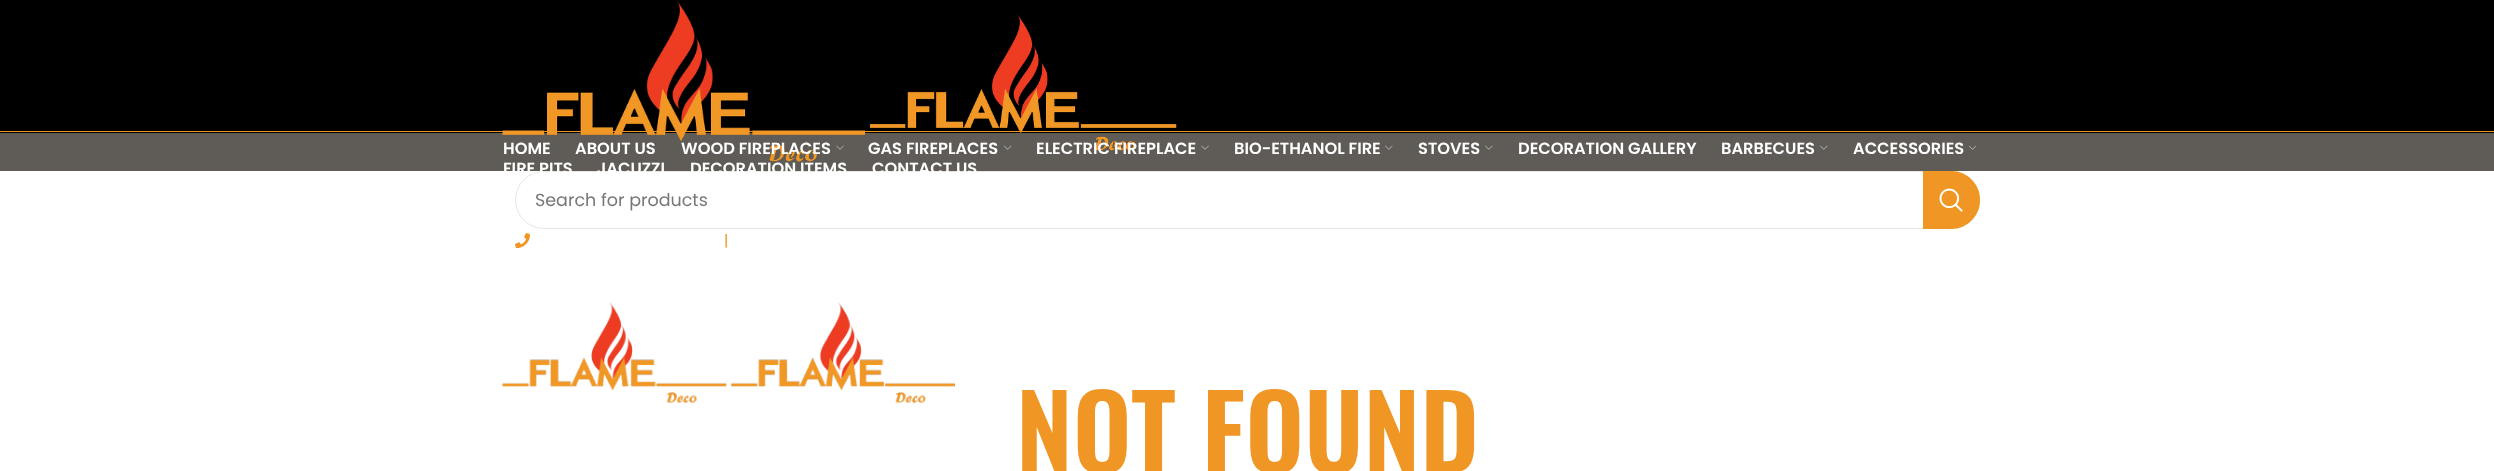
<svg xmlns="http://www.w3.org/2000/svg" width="2494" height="471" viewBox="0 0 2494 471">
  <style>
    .t1 { font: 600 16.25px Poppins; fill: #fff; }
    .t2 { font: 17.5px Poppins; fill: #777; }
    .t3 { font: 15px Poppins; fill: #f09625; }
    .t4 { font: 600 102.5px Oswald; fill: #f09625; }
  </style>
  <rect width="100%" height="100%" fill="#000"/>
  <rect x="0" y="133" width="2494" height="38" fill="#5f5c58"/>
  <rect x="0" y="131" width="2494" height="1" fill="#f09625"/>
  <image x="502" y="0" width="363" height="162" href="images/4.png"/>
  <text x="503" y="154" class="t1">HOME</text>
  <text x="575" y="154" class="t1">ABOUT US</text>
  <text x="681" y="154" class="t1">WOOD FIREPLACES</text>
  <image x="836" y="145" width="8" height="5" href="images/1.png"/>
  <image x="870" y="14" width="307" height="137" href="images/5.png"/>
  <text x="868" y="154" class="t1">GAS FIREPLACES</text>
  <image x="1004" y="145" width="8" height="5" href="images/2.png"/>
  <text x="1036" y="154" class="t1">ELECTRIC FIREPLACE</text>
  <image x="1201" y="145" width="8" height="5" href="images/1.png"/>
  <text x="1234" y="154" class="t1">BIO-ETHANOL FIRE</text>
  <image x="1385" y="145" width="8" height="5" href="images/3.png"/>
  <text x="1418" y="154" class="t1">STOVES</text>
  <image x="1485" y="145" width="8" height="5" href="images/3.png"/>
  <text x="1518" y="154" class="t1">DECORATION GALLERY</text>
  <text x="1721" y="154" class="t1">BARBECUES</text>
  <image x="1820" y="145" width="8" height="5" href="images/3.png"/>
  <text x="1853" y="154" class="t1">ACCESSORIES</text>
  <image x="1969" y="145" width="8" height="5" href="images/2.png"/>
  <rect x="0" y="171" width="2494" height="300" fill="#fff"/>
  <rect x="515.5" y="171.5" width="1464" height="57" rx="28.5" fill="none" stroke="#e6e6e6"/>
  <text x="503" y="174" class="t1">FIRE PITS</text>
  <text x="597" y="174" class="t1">JACUZZI</text>
  <text x="690" y="174" class="t1">DECORATION ITEMS</text>
  <text x="872" y="174" class="t1">CONTACT US</text>
  <text x="535" y="206" class="t2">Search for products</text>
  <path d="M1923 171H1951.5C1967 171 1980 184 1980 199.5V200.5C1980 216 1967 229 1951.5 229H1923Z" fill="#f09625"/>
  <image x="1939" y="188" width="24" height="24" href="images/6.png"/>
  <image x="515" y="233" width="15" height="16" href="images/7.png"/>
  <text x="724" y="246" class="t3">|</text>
  <image x="502" y="302" width="225" height="102" href="images/8.png"/>
  <image x="731" y="302" width="224" height="102" href="images/9.png"/>
  <text x="1016" y="473" class="t4">NOT FOUND</text>
</svg>
